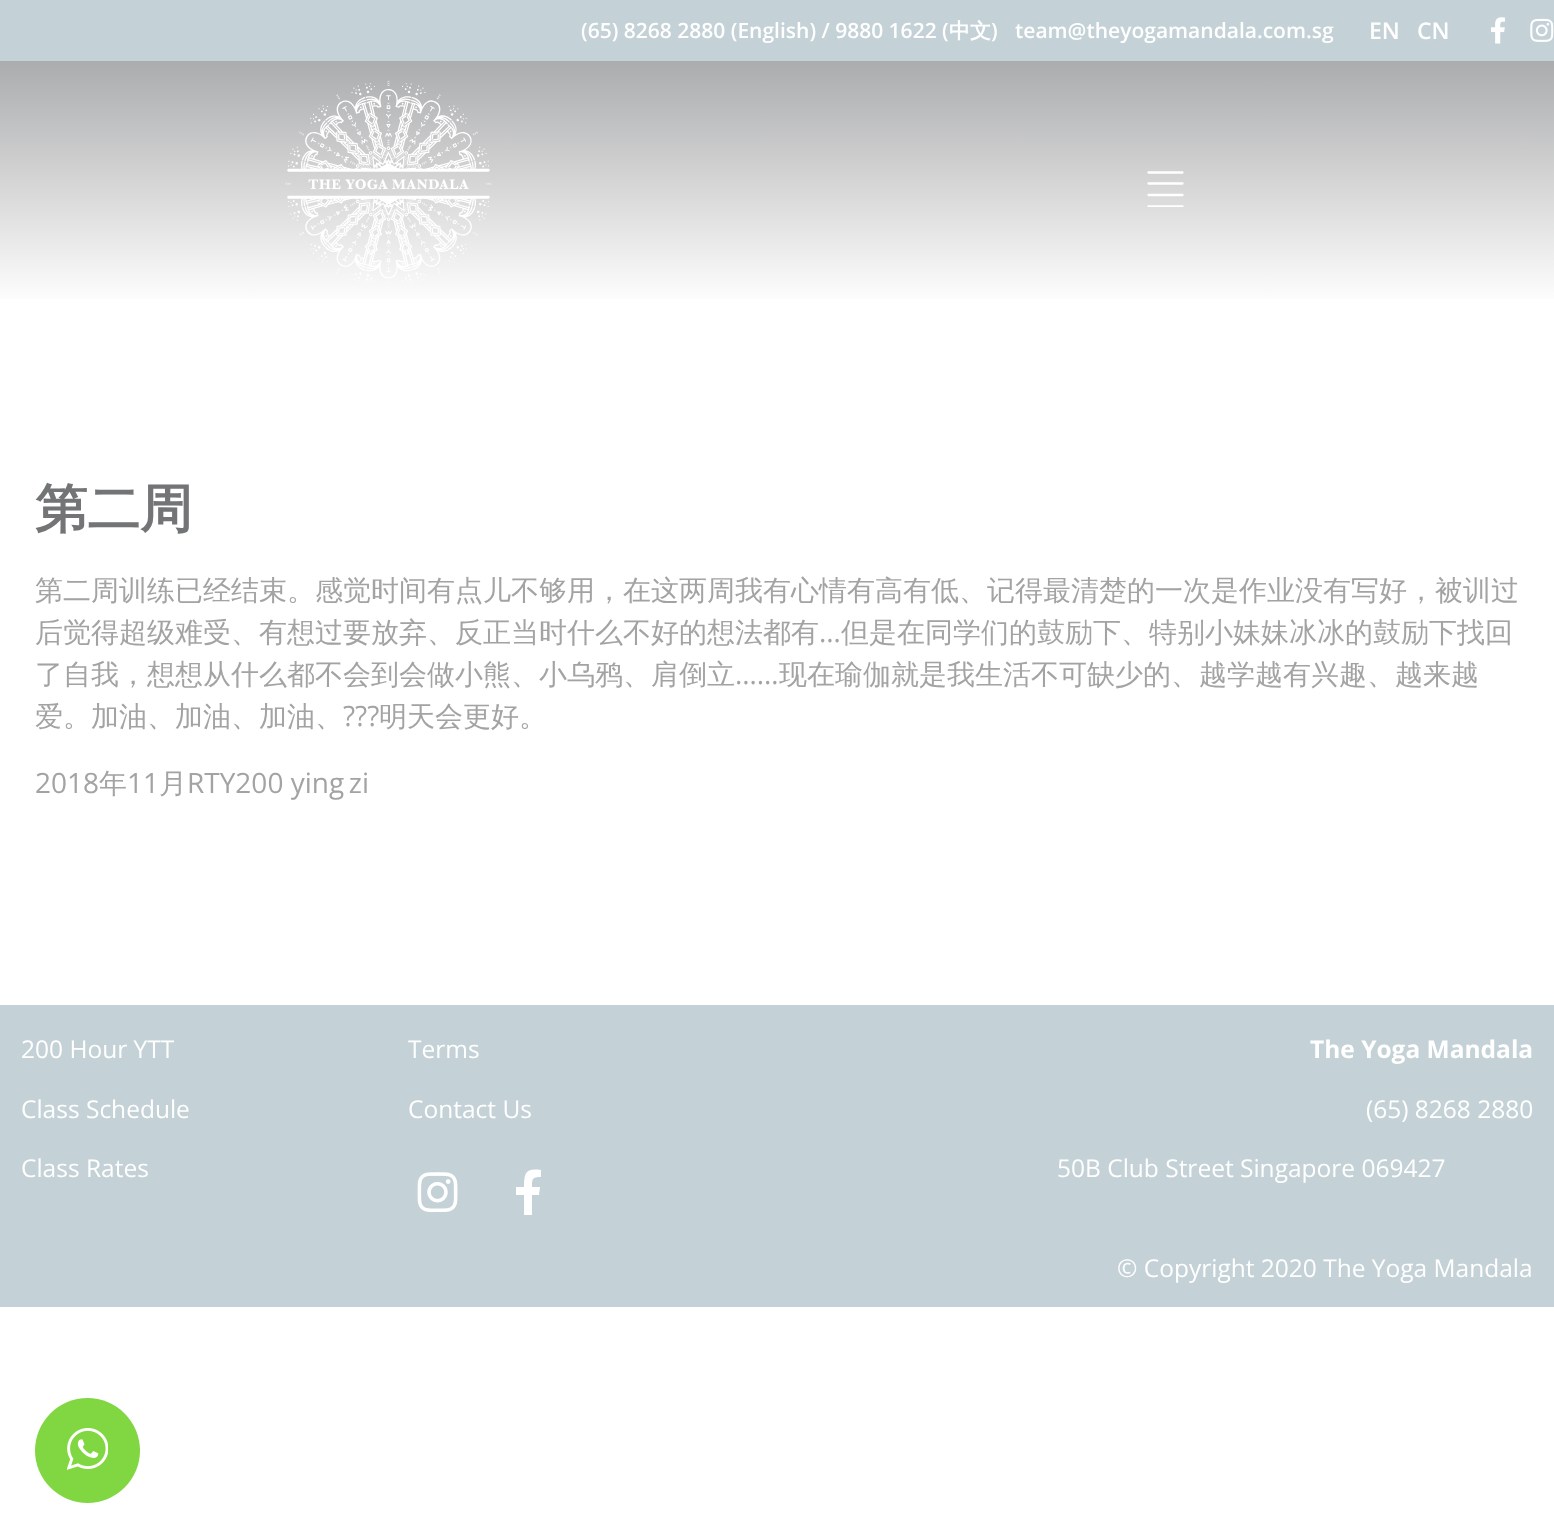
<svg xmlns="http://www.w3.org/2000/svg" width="1554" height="1538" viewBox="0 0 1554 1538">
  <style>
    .t1 { font: 600 21px Open Sans; fill: #fff; }
    .t2 { font: bold 21px WenQuanYi Zen Hei; fill: #fff; }
    .t3 { font: 600 23px Open Sans; fill: #fff; }
    .t4 { font: bold 52.5px WenQuanYi Zen Hei; fill: #727475; }
    .t5 { font: 500 28px WenQuanYi Zen Hei; fill: #a3a3a3; }
    .t6 { font: 28px Open Sans; fill: #a3a3a3; }
    .t7 { font: 24.5px Open Sans; fill: #fff; }
    .t8 { font: bold 24.5px Open Sans; fill: #fff; }
  </style>
  <defs>
    <linearGradient id="g1" gradientUnits="userSpaceOnUse" x1="777" y1="61" x2="777" y2="306"><stop offset="0" stop-color="#abacad"/><stop offset="1" stop-color="#fff"/></linearGradient>
    <clipPath id="clip1"><rect x="1143" y="161" width="45" height="46"/></clipPath>
  </defs>
  <rect width="100%" height="100%" fill="#fff"/>
  <rect x="0" y="0" width="1554" height="61" fill="#c4d2d7"/>
  <text x="581" y="38" class="t1">(65) 8268 2880 (English) / 9880 1622 (</text>
  <text x="949" y="38" class="t2">中文</text>
  <text x="991" y="38" class="t1">)</text>
  <text x="1015" y="38" class="t1">team@theyogamandala.com.sg</text>
  <text x="1369" y="39" class="t3">EN</text>
  <text x="1417" y="39" class="t3">CN</text>
  <image x="1491" y="17" width="14" height="27" href="images/1.png"/>
  <image x="1530" y="18" width="24" height="24" href="images/2.png"/>
  <rect x="0" y="61" width="1554" height="238" fill="url(#g1)"/>
  <image x="285" y="80" width="207" height="204" href="images/3.png"/>
  <path d="M1148.5 172.5H1182.5M1148.5 195H1182.5" fill="none" stroke="#fff" stroke-width="2.3" stroke-linecap="round" stroke-linejoin="round"/>
  <g clip-path="url(#clip1)">
    <path d="M1148.5 206.5H1182.5" fill="none" stroke="#fff" stroke-width="2.3" stroke-linecap="round" stroke-linejoin="round"/>
  </g>
  <path d="M1148.5 183.5H1182.5" fill="none" stroke="#fff" stroke-width="2.3" stroke-linecap="round" stroke-linejoin="round"/>
  <text x="35" y="527" class="t4">第二周</text>
  <text x="35" y="600" class="t5">第二周训练已经结束。感觉时间有点儿不够用，在这两周我有心情有高有低、记得最清楚的一次是作业没有写好，被训过</text>
  <text x="35" y="642" class="t5">后觉得超级难受、有想过要放弃、反正当时什么不好的想法都有</text>
  <text x="819" y="642" class="t6">…</text>
  <text x="841" y="642" class="t5">但是在同学们的鼓励下、特别小妹妹冰冰的鼓励下找回</text>
  <text x="35" y="684" class="t5">了自我，想想从什么都不会到会做小熊、小乌鸦、肩倒立</text>
  <text x="735" y="684" class="t6">……</text>
  <text x="779" y="684" class="t5">现在瑜伽就是我生活不可缺少的、越学越有兴趣、越来越</text>
  <text x="35" y="726" class="t5">爱。加油、加油、加油、</text>
  <text x="343" y="726" class="t6">???</text>
  <text x="379" y="726" class="t5">明天会更好。</text>
  <text x="35" y="793" class="t6">2018</text>
  <text x="99" y="793" class="t5">年</text>
  <text x="127" y="793" class="t6">11</text>
  <text x="159" y="793" class="t5">月</text>
  <text x="187" y="793" class="t6">RTY200 ying zi</text>
  <rect x="0" y="1005" width="1554" height="302" fill="#c4d2d7"/>
  <text x="21" y="1058" class="t7">200 Hour YTT</text>
  <text x="21" y="1118" class="t7">Class Schedule</text>
  <text x="21" y="1177" class="t7">Class Rates</text>
  <text x="408" y="1058" class="t7">Terms</text>
  <text x="408" y="1118" class="t7">Contact Us</text>
  <image x="417" y="1172" width="41" height="40" href="images/4.png"/>
  <path d="M539 1195H532V1215H524V1195H516V1187H524C524 1172 526 1168 541 1170V1177C532 1177 532 1179 532 1187H540Z" fill="#fff"/>
  <text x="1310" y="1058" class="t8">The Yoga Mandala</text>
  <text x="1366" y="1118" class="t7">(65) 8268 2880</text>
  <text x="1057" y="1177" class="t7">50B Club Street Singapore 069427</text>
  <text x="1117" y="1277" class="t7">© Copyright 2020 The Yoga Mandala</text>
  <circle cx="87.5" cy="1450.5" r="52.5" fill="#81d742"/>
  <image x="67" y="1428" width="41" height="42" href="images/5.png"/>
</svg>
